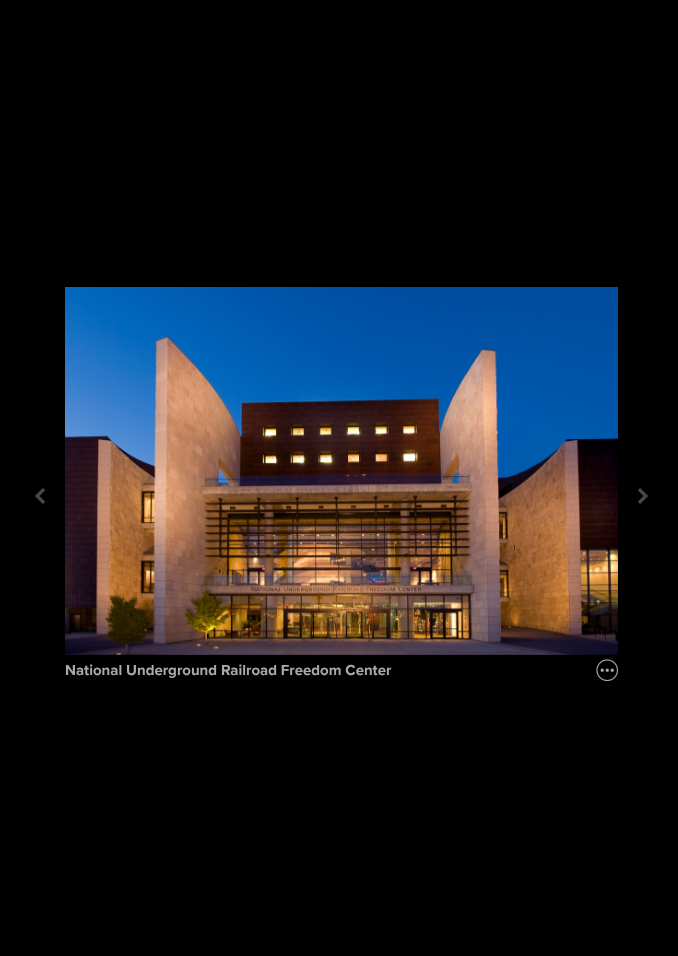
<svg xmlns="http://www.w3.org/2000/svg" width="678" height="956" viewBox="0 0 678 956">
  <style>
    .t1 { font: bold 15px Proxima Nova; fill: #aaa; }
  </style>
  <rect width="100%" height="100%" fill="#000"/>
  <image x="35" y="488" width="10" height="16" href="images/1.png"/>
  <image x="638" y="488" width="10" height="16" href="images/2.png"/>
  <image x="65" y="287" width="553" height="368" href="images/3.png"/>
  <text x="65" y="675" class="t1">National Underground Railroad Freedom Center</text>
  <image x="596" y="659" width="22" height="23" href="images/4.png"/>
</svg>
